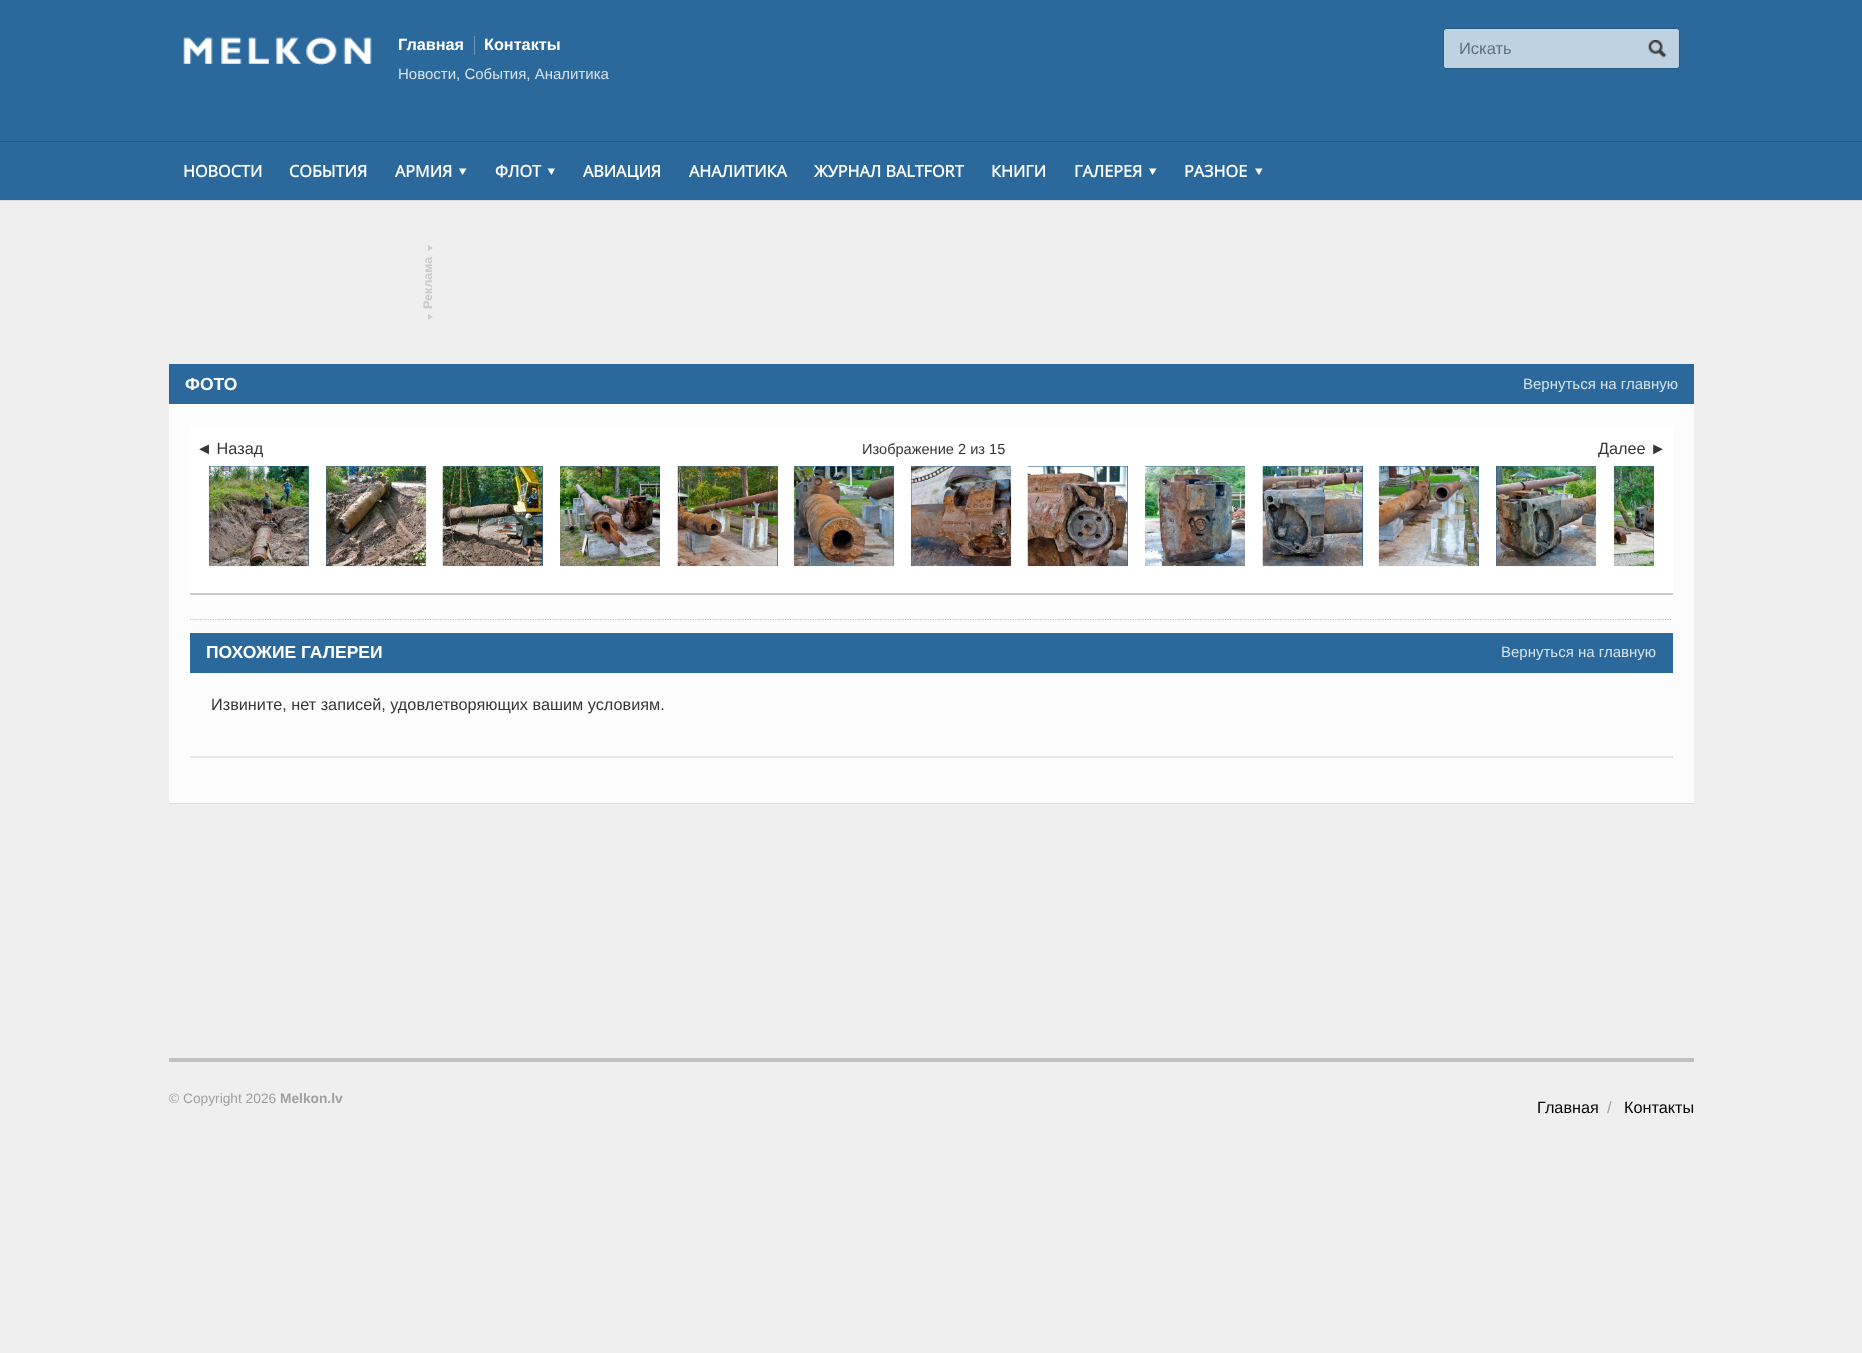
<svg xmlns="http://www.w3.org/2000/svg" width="1862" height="1353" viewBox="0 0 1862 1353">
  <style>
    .t1 { font: bold 16.25px Liberation Sans; fill: #fff; }
    .t2 { font: 15px Liberation Sans; fill: #d5e1eb; }
    .t3 { font: 16.5px Liberation Sans; fill: #5f7181; }
    .t4 { font: bold 16.25px Open Sans; fill: #fff; }
    .t5 { font: bold 12.5px Liberation Sans; fill: #cacaca; }
    .t6 { font: bold 17.5px Liberation Sans; fill: #fff; }
    .t7 { font: 16.25px Liberation Sans; fill: #363635; }
    .t8 { font: 14.6px Liberation Sans; fill: #363635; }
    .t9 { font: 13.75px Liberation Sans; fill: #a0a0a0; }
    .t10 { font: bold 13.75px Liberation Sans; fill: #a0a0a0; }
    .t11 { font: 16.25px Liberation Sans; fill: #000; }
    .t12 { font: 16.25px Liberation Sans; fill: #a0a0a0; }
  </style>
  <rect width="100%" height="100%" fill="#f0efef"/>
  <rect x="0" y="0" width="1862" height="200" fill="#2b699c"/>
  <image x="183" y="37" width="189" height="29" href="images/1.png"/>
  <text x="398" y="50" class="t1">Главная</text>
  <rect x="474" y="36" width="1" height="19" fill="#6b96ba"/>
  <text x="484" y="50" class="t1">Контакты</text>
  <text x="398" y="79" class="t2">Новости, События, Аналитика</text>
  <rect x="1443.5" y="28.5" width="236" height="40" rx="3.5" fill="none" stroke="#255a86"/>
  <rect x="1444" y="29" width="235" height="39" rx="2.5" fill="#bfd2e1"/>
  <text x="1459" y="54" class="t3">Искать</text>
  <image x="1648" y="40" width="19" height="18" href="images/2.png"/>
  <rect x="0" y="141" width="1862" height="1" fill="#255985"/>
  <text x="183" y="177" class="t4">НОВОСТИ</text>
  <text x="289" y="177" class="t4">СОБЫТИЯ</text>
  <text x="395" y="177" class="t4">АРМИЯ</text>
  <path d="M466.5 168.5L462.5 175L459 168.5Z" fill="#fff"/>
  <text x="495" y="177" class="t4">ФЛОТ</text>
  <path d="M555 168.5L551.5 175L547.5 168.5Z" fill="#fff"/>
  <text x="583" y="177" class="t4">АВИАЦИЯ</text>
  <text x="689" y="177" class="t4">АНАЛИТИКА</text>
  <text x="814" y="177" class="t4">ЖУРНАЛ BALTFORT</text>
  <text x="991" y="177" class="t4">КНИГИ</text>
  <text x="1074" y="177" class="t4">ГАЛЕРЕЯ</text>
  <path d="M1156.5 168.5L1152.5 175L1149 168.5Z" fill="#fff"/>
  <text x="1184" y="177" class="t4">РАЗНОЕ</text>
  <path d="M1262.5 168.5L1259 175L1255 168.5Z" fill="#fff"/>
  <rect x="0" y="200" width="1862" height="1" fill="#d9d9d9"/>
  <path d="M428 245L433 248L428 251Z" fill="#cacaca"/>
  <text x="432" y="309" transform="rotate(-90 432 309)" class="t5">Реклама</text>
  <path d="M428 314L433 317L428 319.5Z" fill="#cacaca"/>
  <rect x="169" y="364" width="1525" height="40" fill="#2b699c"/>
  <text x="185" y="390" class="t6">ФОТО</text>
  <text x="1523" y="389" class="t2">Вернуться на главную</text>
  <rect x="169" y="405" width="1525" height="399" fill="#00000014" filter="blur(0.5px)"/>
  <rect x="169" y="404" width="1525" height="399" fill="#fcfcfc"/>
  <rect x="190" y="428" width="1483" height="167" fill="#00000033" filter="blur(0.5px)"/>
  <rect x="190" y="425" width="1483" height="168" fill="#fff"/>
  <text x="196" y="454" class="t7">◄ Назад</text>
  <text x="862" y="454" class="t8">Изображение 2 из 15</text>
  <text x="1598" y="454" class="t7">Далее ►</text>
  <rect x="209" y="466" width="100" height="100" fill="#2b699c"/>
  <image x="208" y="466" width="101" height="101" href="images/3.png"/>
  <rect x="326" y="466" width="100" height="100" fill="#2b699c"/>
  <image x="326" y="466" width="101" height="101" href="images/4.png"/>
  <rect x="443" y="466" width="100" height="100" fill="#2b699c"/>
  <image x="442" y="466" width="101" height="101" href="images/5.png"/>
  <rect x="560" y="466" width="100" height="1" fill="#2b699c"/>
  <image x="560" y="466" width="100" height="101" href="images/6.png"/>
  <rect x="678" y="466" width="100" height="100" fill="#2b699c"/>
  <image x="677" y="466" width="101" height="101" href="images/7.png"/>
  <rect x="794" y="466" width="100" height="100" fill="#2b699c"/>
  <image x="793" y="466" width="101" height="101" href="images/8.png"/>
  <rect x="911" y="466" width="100" height="100" fill="#2b699c"/>
  <image x="911" y="466" width="101" height="101" href="images/9.png"/>
  <rect x="1028" y="466" width="100" height="100" fill="#2b699c"/>
  <image x="1027" y="466" width="101" height="101" href="images/10.png"/>
  <rect x="1145" y="466" width="100" height="1" fill="#2b699c"/>
  <image x="1145" y="466" width="100" height="101" href="images/11.png"/>
  <rect x="1263" y="466" width="100" height="100" fill="#2b699c"/>
  <image x="1262" y="466" width="101" height="101" href="images/12.png"/>
  <rect x="1379" y="466" width="100" height="100" fill="#2b699c"/>
  <image x="1378" y="466" width="101" height="101" href="images/13.png"/>
  <rect x="1496" y="466" width="100" height="100" fill="#2b699c"/>
  <image x="1496" y="466" width="101" height="101" href="images/14.png"/>
  <rect x="1614" y="466" width="40" height="100" fill="#2b699c"/>
  <image x="1613" y="466" width="41" height="101" href="images/15.png"/>
  <path d="M190 619.5H1672.5" fill="none" stroke="#c0bfbf" stroke-width="1.2" stroke-dasharray="1.25 1.25"/>
  <rect x="190" y="633" width="1483" height="40" fill="#2b699c"/>
  <text x="206" y="658" class="t6">ПОХОЖИЕ ГАЛЕРЕИ</text>
  <text x="1501" y="657" class="t2">Вернуться на главную</text>
  <rect x="190" y="674" width="1483" height="84" fill="#00000014" filter="blur(0.5px)"/>
  <rect x="190" y="674" width="1483" height="82" fill="#fcfcfc"/>
  <text x="211" y="710" class="t7">Извините, нет записей, удовлетворяющих вашим условиям.</text>
  <rect x="169" y="1058" width="1525" height="4" fill="#c1c1c1"/>
  <text x="169" y="1103" class="t9">© Copyright 2026</text>
  <text x="280" y="1103" class="t10">Melkon.lv</text>
  <text x="1537" y="1113" class="t11">Главная</text>
  <text x="1607" y="1113" class="t12">/</text>
  <text x="1624" y="1113" class="t11">Контакты</text>
</svg>
